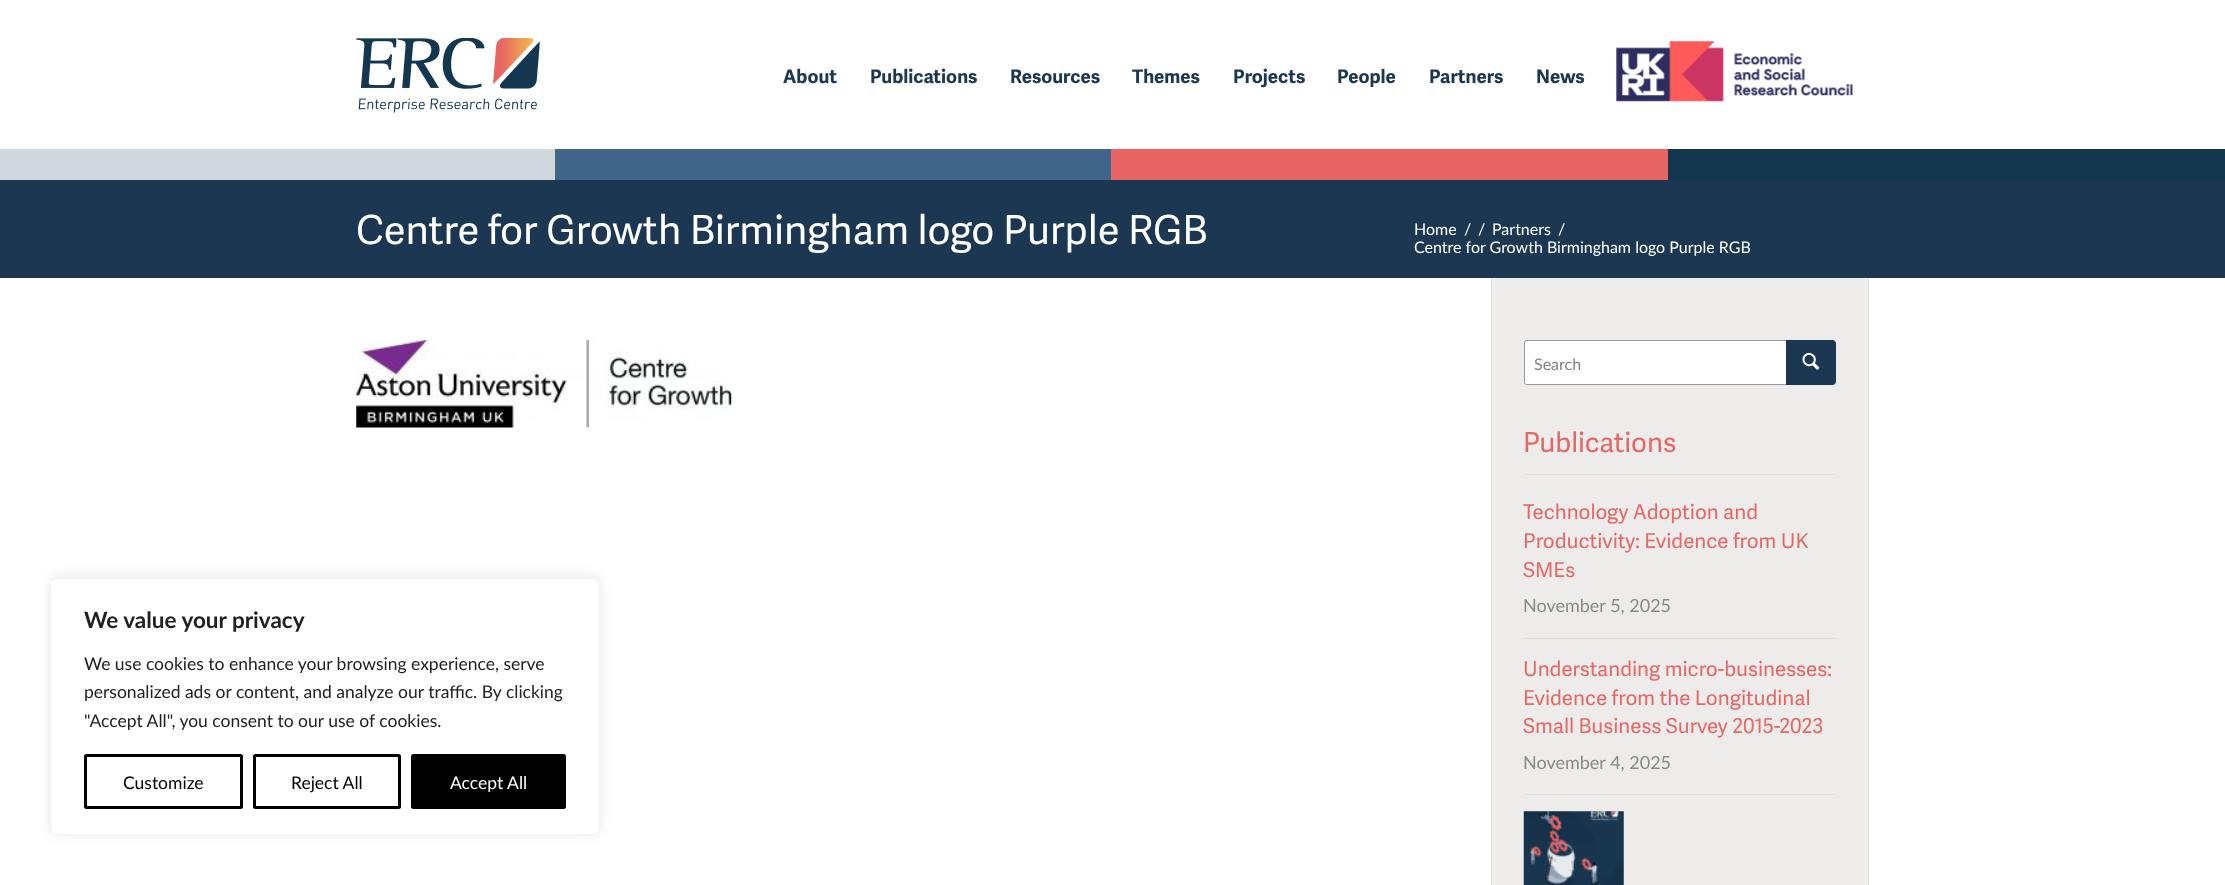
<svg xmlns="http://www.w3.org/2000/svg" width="2225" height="885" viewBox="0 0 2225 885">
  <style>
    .t1 { font: bold 22.5px Lato; fill: #212121; }
    .t2 { font: 17.5px Lato; fill: #212121; }
    .t3 { font: 17.5px Lato; fill: #000; }
    .t4 { font: 17.5px Lato; fill: #fff; }
    .t5 { font: bold 18.75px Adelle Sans; fill: #1b3751; }
    .t6 { font: 40px Adelle Sans; fill: #fff; }
    .t7 { font: 16px Lato; fill: #fff; }
    .t8 { font: 16px Lato; fill: #828282; }
    .t9 { font: 27.5px Adelle Sans; fill: #e56865; }
    .t10 { font: 20.5px Adelle Sans; fill: #e56865; }
    .t11 { font: 18px Lato; fill: #888; }
  </style>
  <defs>
    <clipPath id="clip1"><path d="M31 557H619V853H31ZM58 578H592C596.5 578 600 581.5 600 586V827C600 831.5 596.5 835 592 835H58C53.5 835 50 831.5 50 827V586C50 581.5 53.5 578 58 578Z" clip-rule="evenodd"/></clipPath>
  </defs>
  <rect width="100%" height="100%" fill="#fff"/>
  <g clip-path="url(#clip1)">
    <rect x="50" y="576" width="550" height="258" rx="8" fill="#acabab4d" filter="blur(6px)"/>
  </g>
  <rect x="50.5" y="578.5" width="549" height="256" rx="7.5" fill="none" stroke="#f4f4f4"/>
  <text x="84" y="628" class="t1">We value your privacy</text>
  <text x="84" y="670" class="t2">We use cookies to enhance your browsing experience, serve</text>
  <text x="84" y="698" class="t2">personalized ads or content, and analyze our traffic. By clicking</text>
  <text x="84" y="727" class="t2">"Accept All", you consent to our use of cookies.</text>
  <rect x="85.5" y="755.5" width="156" height="52" rx="1" fill="none" stroke="#000" stroke-width="3"/>
  <text x="123" y="789" class="t3">Customize</text>
  <rect x="254.5" y="755.5" width="145" height="52" rx="1" fill="none" stroke="#000" stroke-width="3"/>
  <text x="291" y="789" class="t3">Reject All</text>
  <rect x="412.5" y="755.5" width="152" height="52" rx="1" fill="#000" stroke="#000" stroke-width="3"/>
  <text x="450" y="789" class="t4">Accept All</text>
  <rect x="0" y="149" width="555" height="31" fill="#d0d8dd"/>
  <rect x="555" y="149" width="556" height="31" fill="#3f6689"/>
  <rect x="1111" y="149" width="557" height="31" fill="#e76664"/>
  <rect x="1668" y="149" width="557" height="31" fill="#143750"/>
  <image x="356" y="38" width="184" height="75" href="images/1.png"/>
  <text x="783" y="83" class="t5">About</text>
  <text x="870" y="83" class="t5">Publications</text>
  <text x="1010" y="83" class="t5">Resources</text>
  <text x="1132" y="83" class="t5">Themes</text>
  <text x="1233" y="83" class="t5">Projects</text>
  <text x="1337" y="83" class="t5">People</text>
  <text x="1429" y="83" class="t5">Partners</text>
  <text x="1536" y="83" class="t5">News</text>
  <image x="1616" y="41" width="237" height="61" href="images/2.png"/>
  <rect x="0" y="180" width="2225" height="98" fill="#1b3751"/>
  <text x="356" y="244" class="t6">Centre for Growth Birmingham logo Purple RGB</text>
  <text x="1414" y="235" class="t7">Home</text>
  <text x="1464" y="235" class="t7">/</text>
  <text x="1478" y="235" class="t7">/</text>
  <text x="1492" y="235" class="t7">Partners</text>
  <text x="1558" y="235" class="t7">/</text>
  <text x="1414" y="253" class="t7">Centre for Growth Birmingham logo Purple RGB</text>
  <image x="356" y="340" width="376" height="88" href="images/3.png"/>
  <rect x="1492" y="278" width="376" height="607" fill="#edeceb"/>
  <rect x="1868" y="278" width="1" height="607" fill="#e0dfda"/>
  <rect x="1491" y="278" width="1" height="607" fill="#e0dfda"/>
  <rect x="1524.5" y="340.5" width="311" height="44" rx="2" fill="#fff" stroke="#999"/>
  <text x="1534" y="370" class="t8">Search</text>
  <path d="M1786 340H1832C1834 340 1836 342 1836 344V381C1836 383 1834 385 1832 385H1786Z" fill="#1b3751"/>
  <image x="1802" y="352" width="18" height="18" href="images/4.png"/>
  <rect x="1524" y="474" width="312" height="1" fill="#e0dfda"/>
  <text x="1523" y="452" class="t9">Publications</text>
  <rect x="1524" y="638" width="312" height="1" fill="#e0dfda"/>
  <text x="1523" y="519" class="t10">Technology Adoption and</text>
  <text x="1523" y="548" class="t10">Productivity: Evidence from UK</text>
  <text x="1523" y="577" class="t10">SMEs</text>
  <text x="1523" y="612" class="t11">November 5, 2025</text>
  <rect x="1524" y="794" width="312" height="1" fill="#e0dfda"/>
  <text x="1523" y="676" class="t10">Understanding micro-businesses:</text>
  <text x="1523" y="705" class="t10">Evidence from the Longitudinal</text>
  <text x="1523" y="733" class="t10">Small Business Survey 2015-2023</text>
  <text x="1523" y="769" class="t11">November 4, 2025</text>
  <image x="1523" y="811" width="101" height="74" href="images/5.png"/>
</svg>
